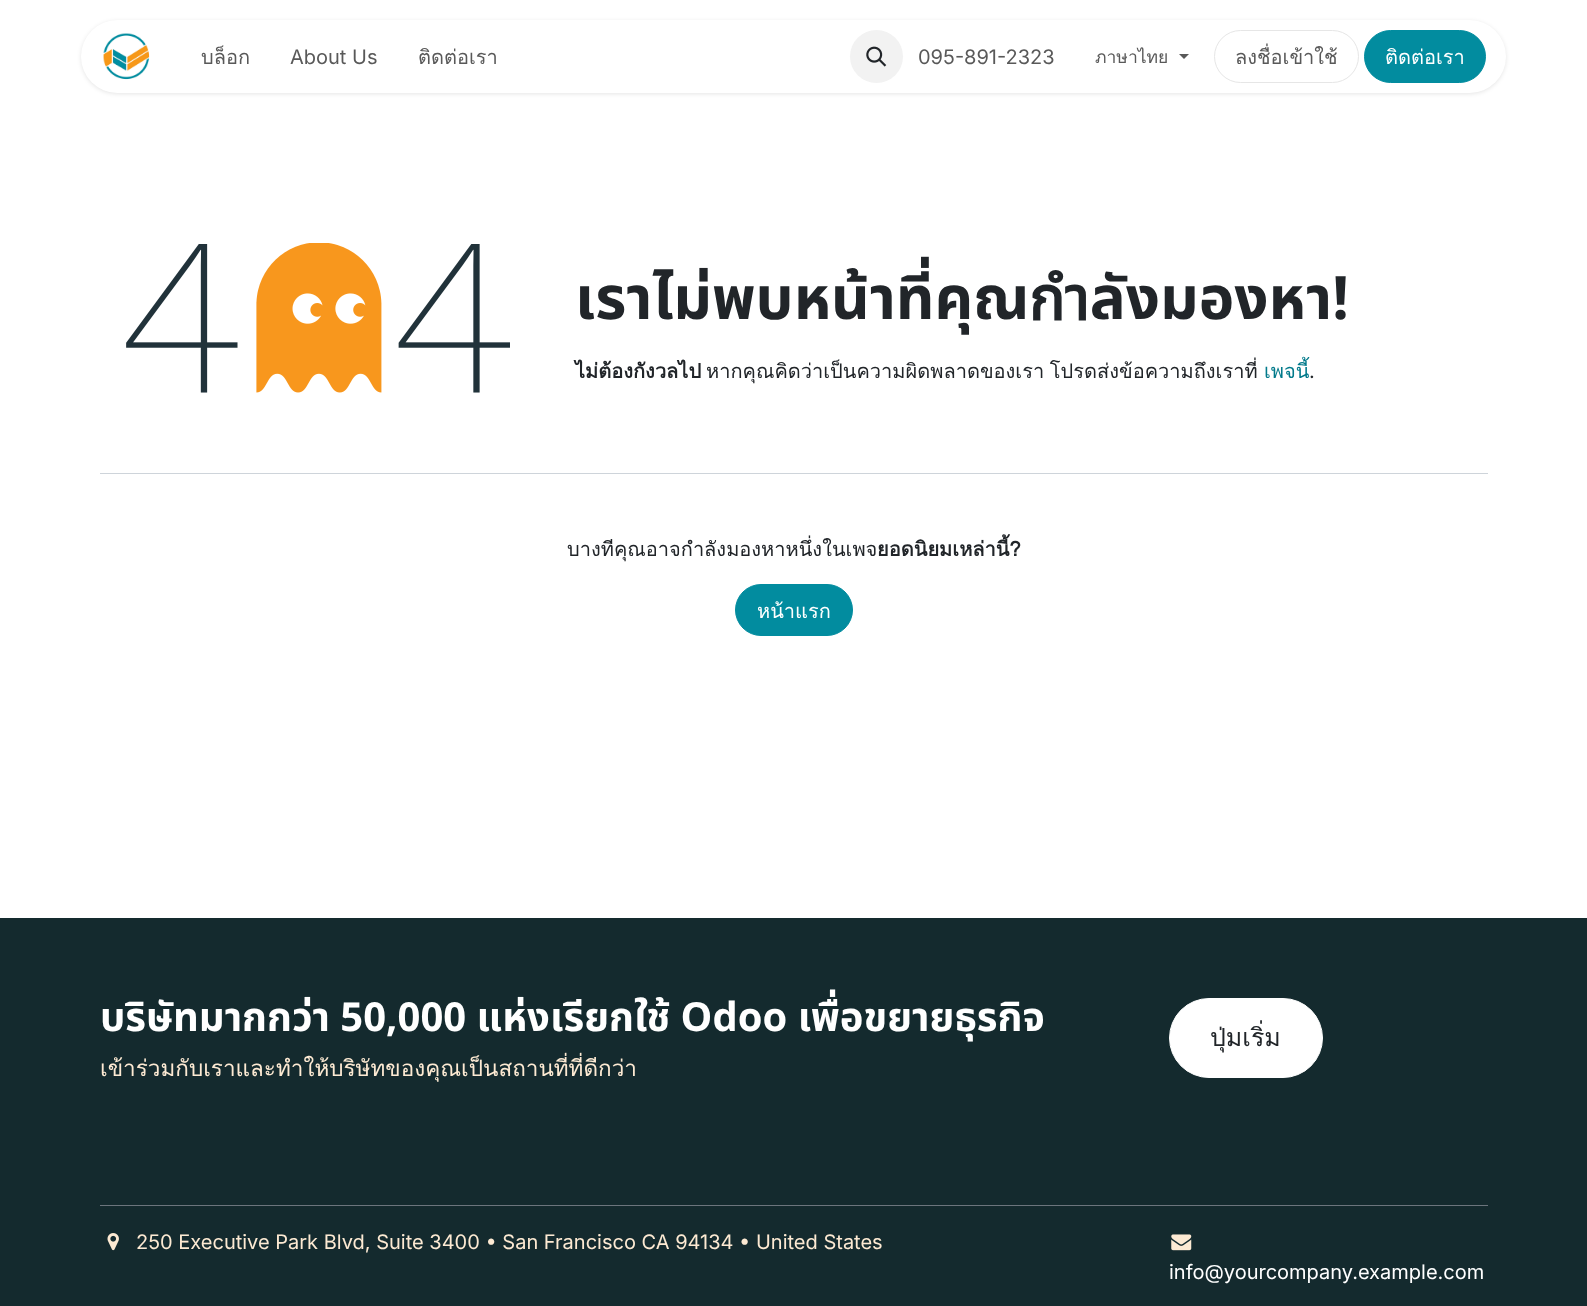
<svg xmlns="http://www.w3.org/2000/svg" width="1587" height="1306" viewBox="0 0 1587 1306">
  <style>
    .t1 { font: 20px Loma; fill: #595959; }
    .t2 { font: 20px Inter; fill: #595959; }
    .t3 { font: 17.5px Loma; fill: #595959; }
    .t4 { font: 20px Loma; fill: #fff; }
    .t5 { font: bold 60px Noto Sans Thai; fill: #212529; }
    .t6 { font: bold 20px Loma; fill: #212529; }
    .t7 { font: 20px Loma; fill: #212529; }
    .t8 { font: 20px Loma; fill: #027a8b; }
    .t9 { font: 20px Inter; fill: #212529; }
    .t10 { font: bold 40px Noto Sans Thai; fill: #fff; }
    .t11 { font: 22.5px Loma; fill: #fdead3; }
    .t12 { font: 25px Loma; fill: #212529; }
    .t13 { font: 20px Inter; fill: #fdead3; }
    .t14 { font: 20px Inter; fill: #fff; }
  </style>
  <rect width="100%" height="100%" fill="#fff"/>
  <rect x="81" y="21" width="1425" height="73" rx="36.5" fill="#0000001a" filter="blur(2px)"/>
  <rect x="81" y="20" width="1425" height="73" rx="36.5" fill="#fff"/>
  <image x="103" y="33" width="47" height="47" href="images/1.png"/>
  <text x="201" y="64" class="t1">บล็อก</text>
  <text x="290" y="64" class="t2">About Us</text>
  <text x="418" y="64" class="t1">ติดต่อเรา</text>
  <circle cx="876.5" cy="56.5" r="26.5" fill="#f2f2f2"/>
  <image x="866" y="46" width="21" height="21" href="images/2.png"/>
  <text x="918" y="64" class="t2">095-891-2323</text>
  <text x="1095" y="63" class="t3">ภาษาไทย</text>
  <path d="M1179 54H1189L1184 59Z" fill="#595959"/>
  <rect x="1214.5" y="30.5" width="144" height="52" rx="26" fill="none" stroke="#e6e6e6"/>
  <text x="1235" y="64" class="t1">ลงชื่อเข้าใช้</text>
  <rect x="1364.5" y="30.5" width="121" height="52" rx="26" fill="#028c9f" stroke="#028c9f"/>
  <text x="1385" y="64" class="t4">ติดต่อเรา</text>
  <image x="126" y="243" width="384" height="150" href="images/3.png"/>
  <text x="575" y="319" class="t5">เราไม่พบหน้าที่คุณกำลังมองหา!</text>
  <text x="575" y="378" class="t6">ไม่ต้องกังวลไป</text>
  <text x="706" y="378" word-spacing="-1" class="t7">หากคุณคิดว่าเป็นความผิดพลาดของเรา โปรดส่งข้อความถึงเราที่</text>
  <text x="1264" y="378" class="t8">เพจนี้</text>
  <text x="1309" y="378" class="t9">.</text>
  <rect x="100" y="473" width="1388" height="1" fill="#ced4da"/>
  <text x="567" y="556" class="t7">บางทีคุณอาจกำลังมองหาหนึ่งในเพจ</text>
  <text x="877" y="556" class="t6">ยอดนิยมเหล่านี้?</text>
  <rect x="735.5" y="584.5" width="117" height="51" rx="25.5" fill="#028c9f" stroke="#028c9f"/>
  <text x="757" y="618" class="t4">หน้าแรก</text>
  <rect x="0" y="918" width="1587" height="388" fill="#142a2e"/>
  <text x="100" y="1031" class="t10">บริษัทมากกว่า 50,000 แห่งเรียกใช้ Odoo เพื่อขยายธุรกิจ</text>
  <text x="100" y="1076" class="t11">เข้าร่วมกับเราและทำให้บริษัทของคุณเป็นสถานที่ที่ดีกว่า</text>
  <rect x="1169.5" y="998.5" width="153" height="79" rx="39.5" fill="#fff" stroke="#fff"/>
  <text x="1210" y="1046" class="t12">ปุ่มเริ่ม</text>
  <rect x="100" y="1205" width="1388" height="1" fill="#6c757d"/>
  <image x="107" y="1233" width="12" height="18" href="images/4.png"/>
  <text x="136" y="1249" class="t13">250 Executive Park Blvd, Suite 3400 • San Francisco CA 94134 • United States</text>
  <image x="1171" y="1234" width="21" height="17" href="images/5.png"/>
  <text x="1169" y="1279" class="t14">info@yourcompany.example.com</text>
</svg>
